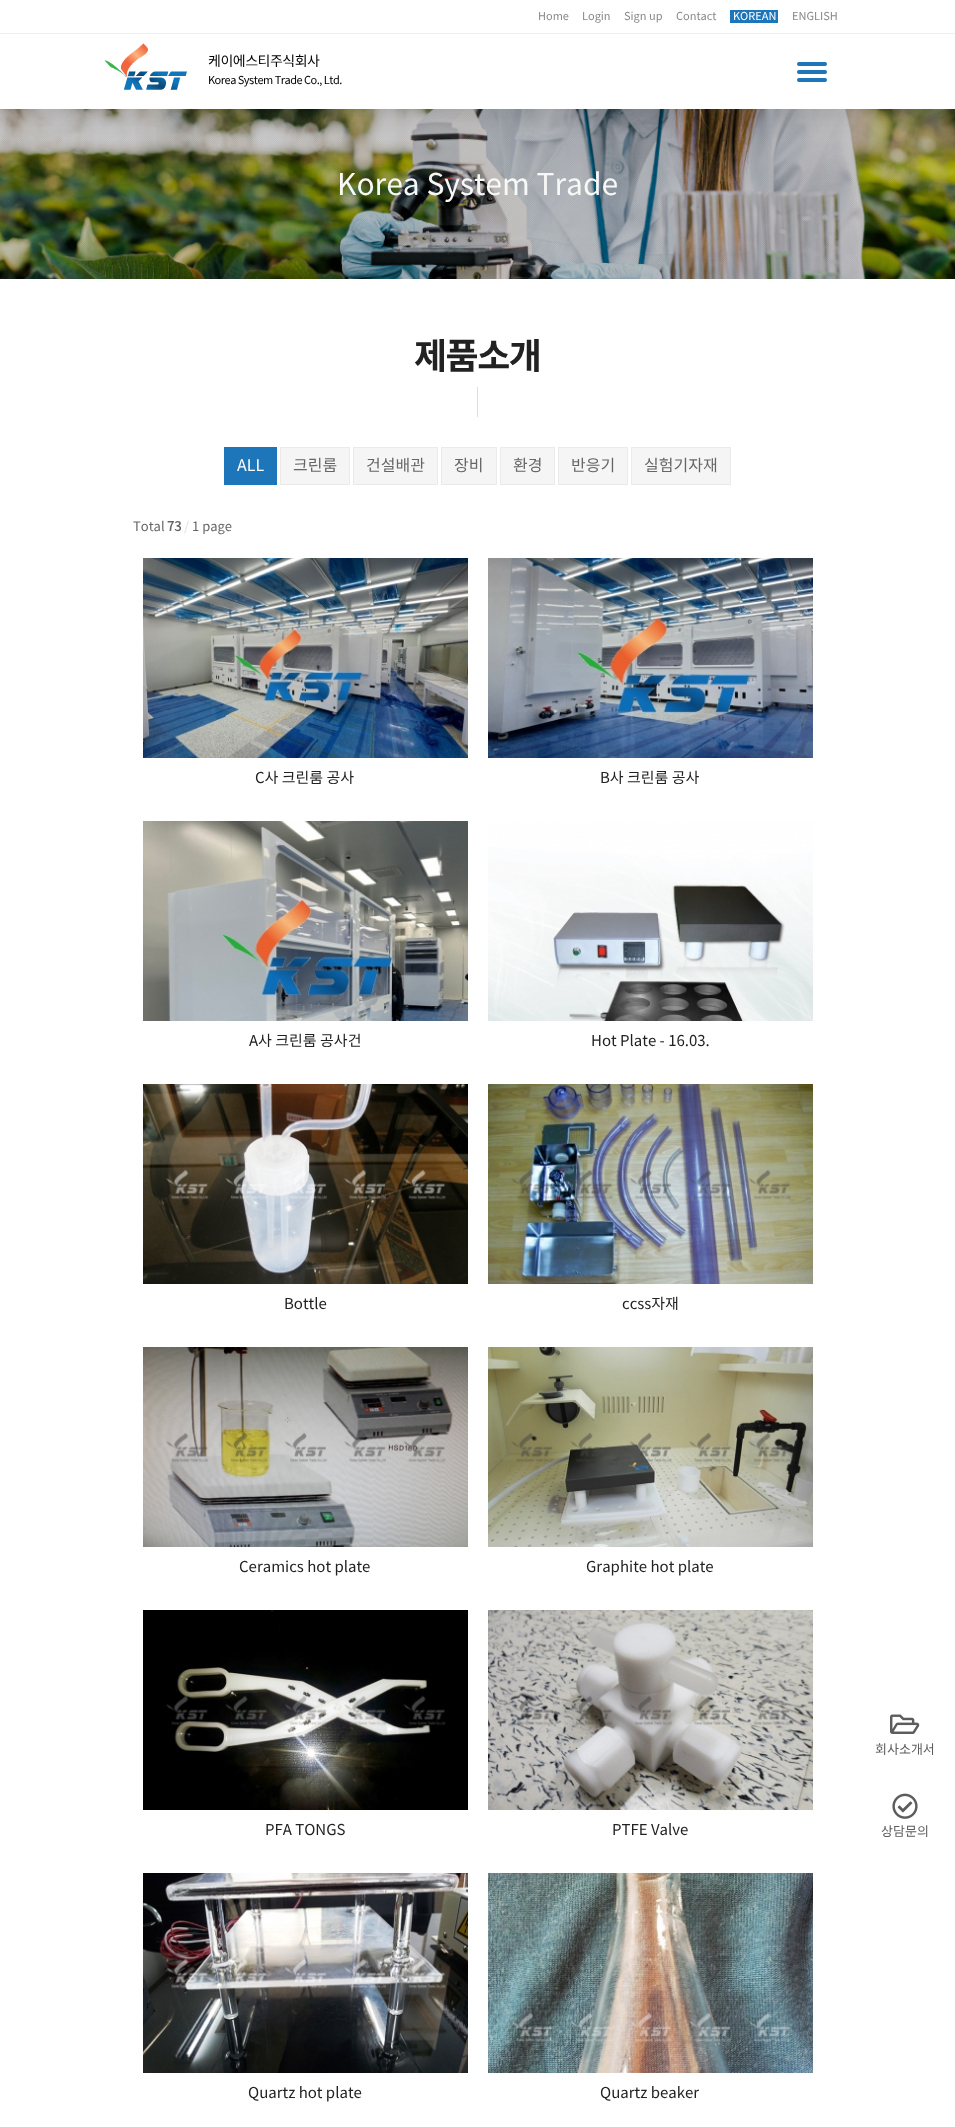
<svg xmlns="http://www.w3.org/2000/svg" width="955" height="2127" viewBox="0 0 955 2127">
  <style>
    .t1 { font: 11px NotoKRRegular; fill: #888; }
    .t2 { font: 11px NotoKRRegular; fill: #fff; }
    .t3 { font: 14px NotoKRRegular; letter-spacing: -0.5px; fill: #000; }
    .t4 { font: 11px NotoKRRegular; letter-spacing: -0.5px; fill: #000; }
    .t5 { font: 30px NotoKRRegular; fill: #f8f8f7; }
    .t6 { font: bold 36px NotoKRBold; letter-spacing: -1.5px; fill: #222; }
    .t7 { font: 16px NotoKRRegular; fill: #fff; }
    .t8 { font: 16px NotoKRRegular; fill: #666; }
    .t9 { font: 13px NotoKRRegular; fill: #666; }
    .t10 { font: bold 13px NotoKRRegular; fill: #666; }
    .t11 { font: 13px NotoKRRegular; fill: #ddd; }
    .t12 { font: 15px NotoKRRegular; fill: #222; }
    .t13 { font: 13px NotoKRRegular; fill: #5c5c5c; }
  </style>
  <rect width="100%" height="100%" fill="#fff"/>
  <image x="0" y="109" width="955" height="170" href="images/2.png"/>
  <rect x="0" y="10" width="955" height="109" fill="#0000001a" filter="blur(10px)"/>
  <rect x="0" y="0" width="955" height="109" fill="#fff"/>
  <rect x="0" y="33" width="955" height="1" fill="#efefef"/>
  <text x="538" y="20" class="t1">Home</text>
  <text x="582" y="20" class="t1">Login</text>
  <text x="624" y="20" class="t1">Sign up</text>
  <text x="676" y="20" class="t1">Contact</text>
  <rect x="730" y="10" width="48" height="13" fill="#1d75ba"/>
  <text x="733" y="20" class="t2">KOREAN</text>
  <text x="792" y="20" class="t1">ENGLISH</text>
  <image x="104" y="43" width="83" height="47" href="images/1.png"/>
  <text x="208" y="66" class="t3">케이에스티주식회사</text>
  <text x="208" y="84" class="t4">Korea System Trade Co., Ltd.</text>
  <rect x="797" y="62" width="30" height="4" rx="2" fill="#1d75ba"/>
  <rect x="797" y="70" width="30" height="4" rx="2" fill="#1d75ba"/>
  <rect x="797" y="78" width="30" height="4" rx="2" fill="#1d75ba"/>
  <text x="337" y="195" class="t5">Korea System Trade</text>
  <text x="414" y="369" class="t6">제품소개</text>
  <rect x="477" y="387" width="1" height="30" fill="#ddd"/>
  <rect x="224" y="447" width="53" height="38" fill="#1d75ba"/>
  <text x="237" y="471" class="t7">ALL</text>
  <rect x="280.5" y="447.5" width="69" height="37" fill="#f5f5f5" stroke="#eaeaea"/>
  <text x="293" y="471" class="t8">크린룸</text>
  <rect x="353.5" y="447.5" width="84" height="37" fill="#f5f5f5" stroke="#eaeaea"/>
  <text x="366" y="471" class="t8">건설배관</text>
  <rect x="441.5" y="447.5" width="55" height="37" fill="#f5f5f5" stroke="#eaeaea"/>
  <text x="454" y="471" class="t8">장비</text>
  <rect x="500.5" y="447.5" width="54" height="37" fill="#f5f5f5" stroke="#eaeaea"/>
  <text x="513" y="471" class="t8">환경</text>
  <rect x="558.5" y="447.5" width="69" height="37" fill="#f5f5f5" stroke="#eaeaea"/>
  <text x="571" y="471" class="t8">반응기</text>
  <rect x="631.5" y="447.5" width="99" height="37" fill="#f5f5f5" stroke="#eaeaea"/>
  <text x="644" y="471" class="t8">실험기자재</text>
  <text x="133" y="531" class="t9">Total</text>
  <text x="167" y="531" class="t10">73</text>
  <text x="184" y="531" class="t11">/</text>
  <text x="192" y="531" class="t9">1 page</text>
  <image x="143" y="558" width="325" height="200" href="images/3.png"/>
  <text x="255" y="783" class="t12">C사 크린룸 공사</text>
  <image x="488" y="558" width="325" height="200" href="images/4.png"/>
  <text x="600" y="783" class="t12">B사 크린룸 공사</text>
  <image x="143" y="821" width="325" height="200" href="images/5.png"/>
  <text x="249" y="1046" class="t12">A사 크린룸 공사건</text>
  <image x="488" y="821" width="325" height="200" href="images/6.png"/>
  <text x="591" y="1046" class="t12">Hot Plate - 16.03.</text>
  <image x="143" y="1084" width="325" height="200" href="images/7.png"/>
  <text x="284" y="1309" class="t12">Bottle</text>
  <image x="488" y="1084" width="325" height="200" href="images/8.png"/>
  <text x="622" y="1309" class="t12">ccss자재</text>
  <image x="143" y="1347" width="325" height="200" href="images/9.png"/>
  <text x="239" y="1572" class="t12">Ceramics hot plate</text>
  <image x="488" y="1347" width="325" height="200" href="images/10.png"/>
  <text x="586" y="1572" class="t12">Graphite hot plate</text>
  <image x="143" y="1610" width="325" height="200" href="images/11.png"/>
  <text x="265" y="1835" class="t12">PFA TONGS</text>
  <image x="488" y="1610" width="325" height="200" href="images/12.png"/>
  <text x="612" y="1835" class="t12">PTFE Valve</text>
  <image x="143" y="1873" width="325" height="200" href="images/13.png"/>
  <text x="248" y="2098" class="t12">Quartz hot plate</text>
  <image x="488" y="1873" width="325" height="200" href="images/14.png"/>
  <text x="600" y="2098" class="t12">Quartz beaker</text>
  <image x="890" y="1714" width="30" height="20" href="images/15.png"/>
  <text x="875" y="1754" class="t13">회사소개서</text>
  <image x="892" y="1793" width="26" height="26" href="images/16.png"/>
  <text x="881" y="1836" class="t13">상담문의</text>
</svg>
